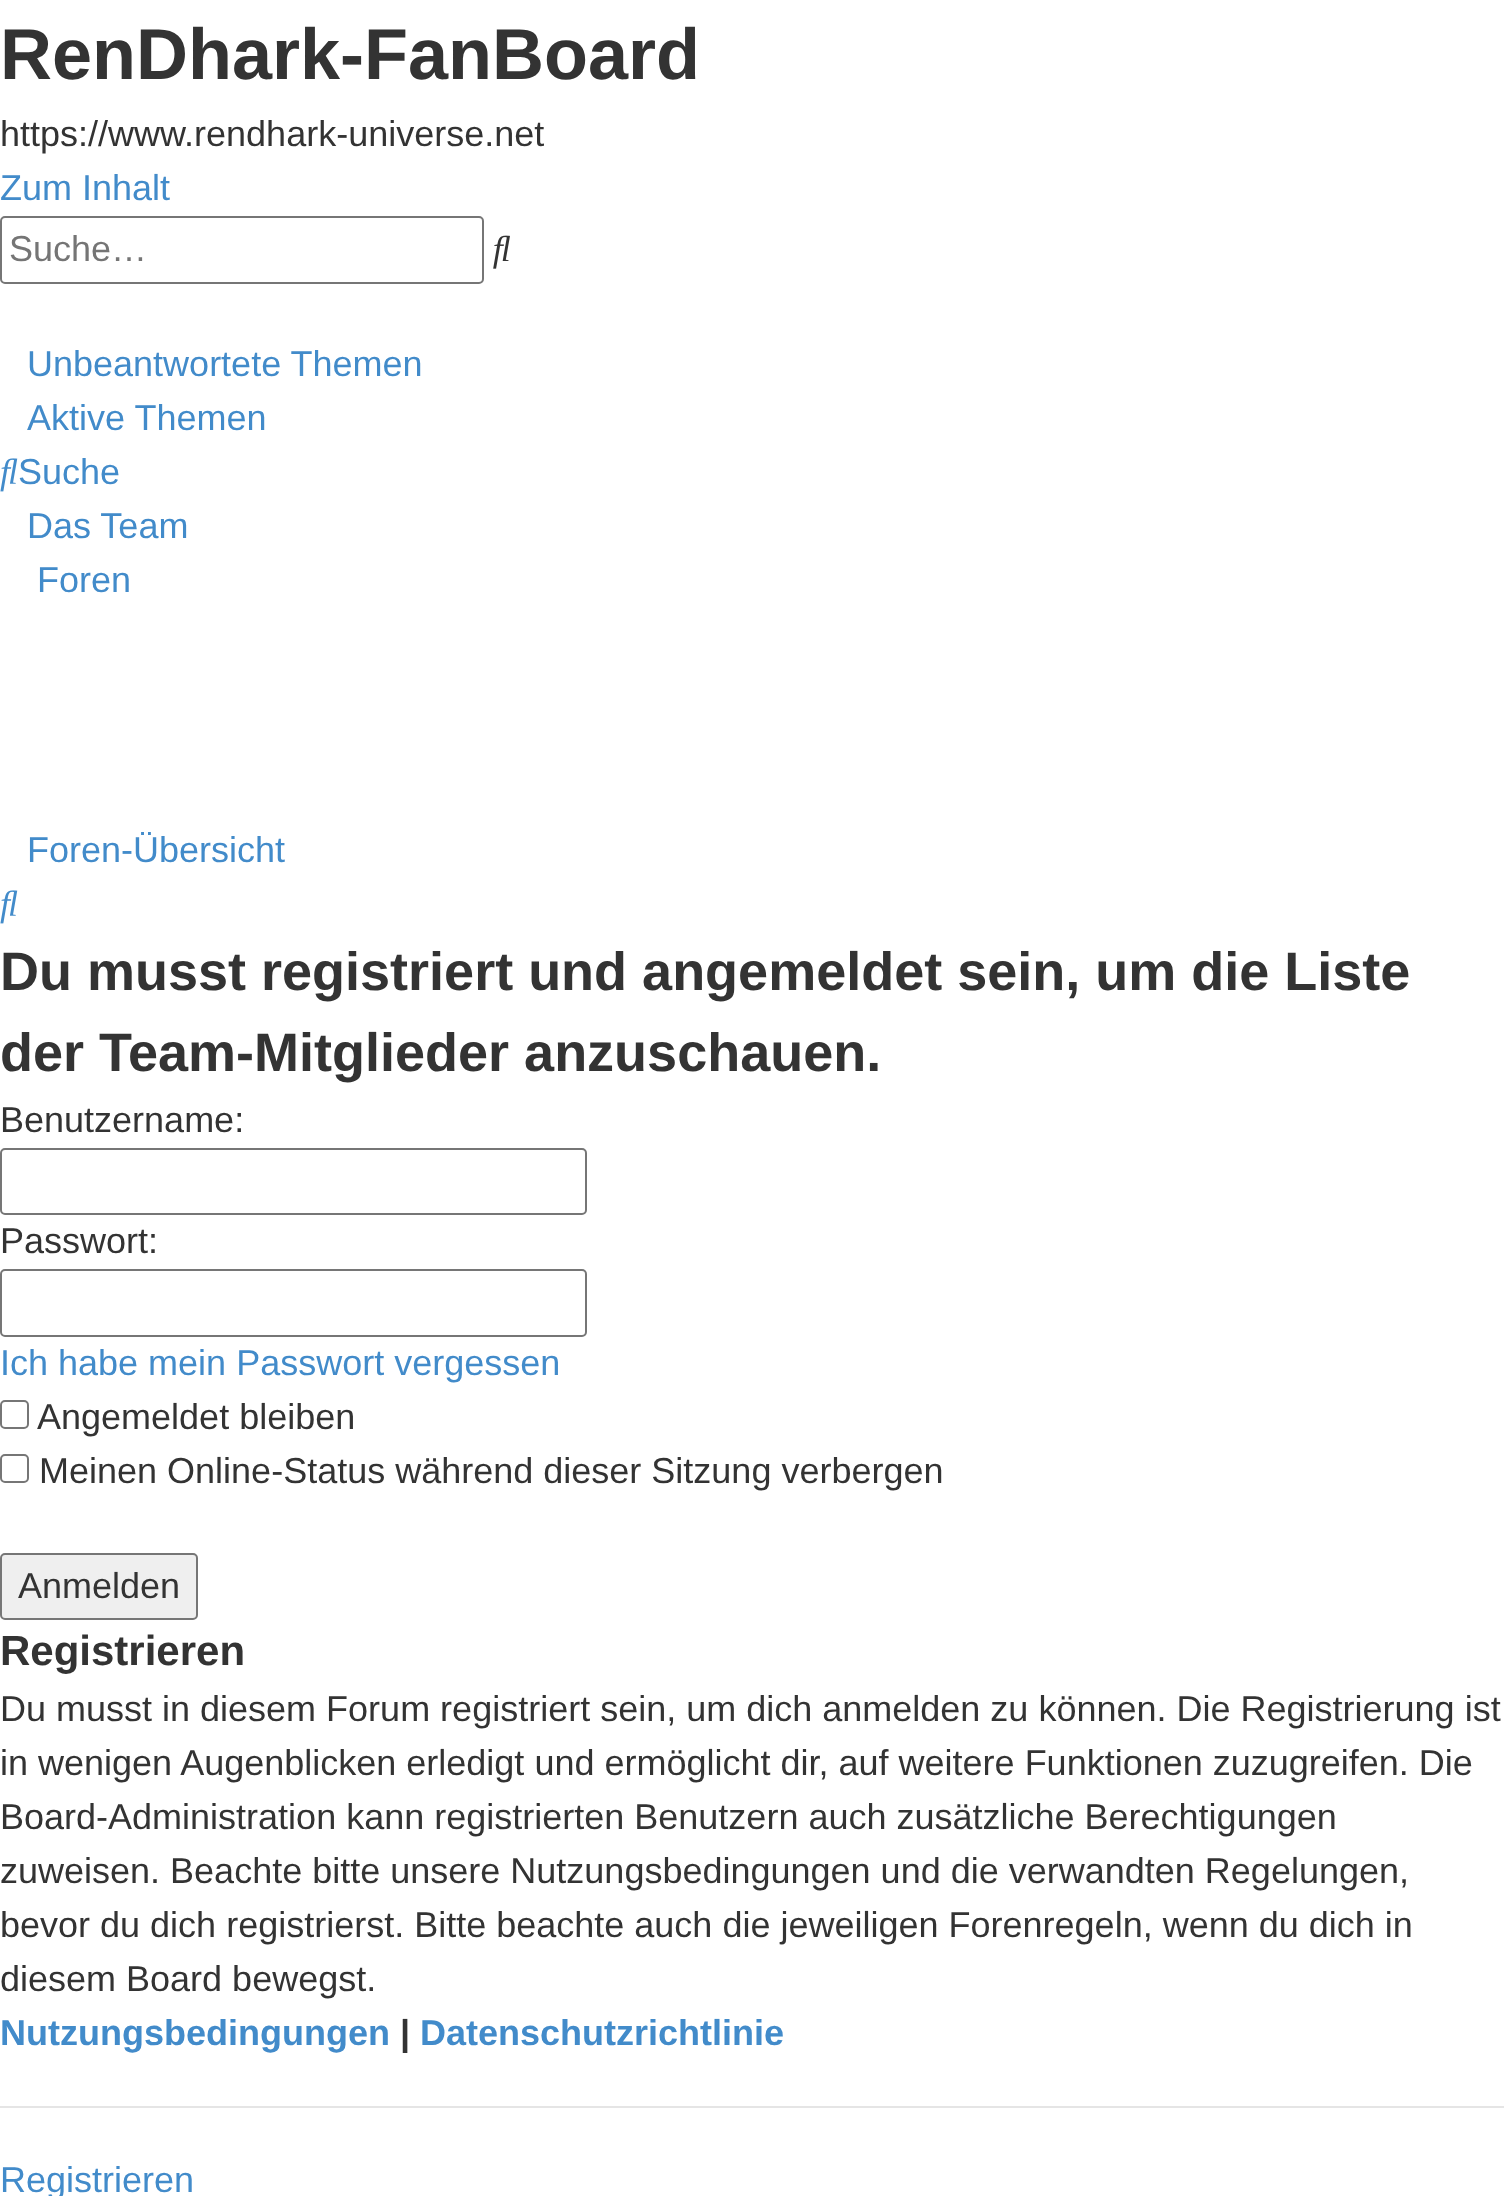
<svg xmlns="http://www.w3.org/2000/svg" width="1504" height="2196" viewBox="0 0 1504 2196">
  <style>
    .t1 { font: bold 72px Liberation Sans; fill: #333; }
    .t2 { font: 36px Liberation Sans; fill: #333; }
    .t3 { font: 36px Liberation Sans; fill: #428bca; }
    .t4 { font: 36px Liberation Sans; fill: #757575; }
    .t5 { font: bold 54px Liberation Sans; fill: #333; }
    .t6 { font: bold 42px Liberation Sans; fill: #333; }
    .t7 { font: bold 36px Liberation Sans; fill: #428bca; }
    .t8 { font: bold 36px Liberation Sans; fill: #333; }
  </style>
  <rect width="100%" height="100%" fill="#fff"/>
  <text x="0" y="79" class="t1">RenDhark-FanBoard</text>
  <text x="0" y="146" class="t2">https://www.rendhark-universe.net</text>
  <text x="0" y="200" class="t3">Zum Inhalt</text>
  <rect x="1" y="217" width="482" height="66" rx="4" fill="none" stroke="#767676" stroke-width="2"/>
  <text x="9" y="261" class="t4">Suche…</text>
  <image x="493" y="235" width="17" height="34" href="images/1.png"/>
  <text x="27" y="376" class="t3">Unbeantwortete Themen</text>
  <text x="27" y="430" class="t3">Aktive Themen</text>
  <image x="0" y="458" width="18" height="34" href="images/2.png"/>
  <text x="18" y="484" class="t3">Suche</text>
  <text x="27" y="538" class="t3">Das Team</text>
  <text x="37" y="592" class="t3">Foren</text>
  <text x="27" y="862" class="t3">Foren-Übersicht</text>
  <image x="0" y="890" width="18" height="34" href="images/2.png"/>
  <text x="0" y="990" class="t5">Du musst registriert und angemeldet sein, um die Liste</text>
  <text x="0" y="1071" class="t5">der Team-Mitglieder anzuschauen.</text>
  <text x="0" y="1132" class="t2">Benutzername:</text>
  <rect x="1" y="1149" width="585" height="65" rx="4" fill="none" stroke="#767676" stroke-width="2"/>
  <text x="0" y="1253" class="t2">Passwort:</text>
  <rect x="1" y="1270" width="585" height="66" rx="4" fill="none" stroke="#767676" stroke-width="2"/>
  <text x="0" y="1375" class="t3">Ich habe mein Passwort vergessen</text>
  <rect x="1" y="1401" width="27" height="27" rx="4" fill="none" stroke="#767676" stroke-width="2"/>
  <text x="37" y="1429" class="t2">Angemeldet bleiben</text>
  <rect x="1" y="1455" width="27" height="27" rx="4" fill="none" stroke="#767676" stroke-width="2"/>
  <text x="39" y="1483" class="t2">Meinen Online-Status während dieser Sitzung verbergen</text>
  <rect x="1" y="1554" width="196" height="65" rx="4" fill="#efefef" stroke="#767676" stroke-width="2"/>
  <text x="18" y="1598" class="t2">Anmelden</text>
  <text x="0" y="1665" class="t6">Registrieren</text>
  <text x="0" y="1721" class="t2">Du musst in diesem Forum registriert sein, um dich anmelden zu können. Die Registrierung ist</text>
  <text x="0" y="1775" class="t2">in wenigen Augenblicken erledigt und ermöglicht dir, auf weitere Funktionen zuzugreifen. Die</text>
  <text x="0" y="1829" class="t2">Board-Administration kann registrierten Benutzern auch zusätzliche Berechtigungen</text>
  <text x="0" y="1883" class="t2">zuweisen. Beachte bitte unsere Nutzungsbedingungen und die verwandten Regelungen,</text>
  <text x="0" y="1937" class="t2">bevor du dich registrierst. Bitte beachte auch die jeweiligen Forenregeln, wenn du dich in</text>
  <text x="0" y="1991" class="t2">diesem Board bewegst.</text>
  <text x="0" y="2045" class="t7">Nutzungsbedingungen</text>
  <text x="400" y="2045" class="t8">|</text>
  <text x="420" y="2045" class="t7">Datenschutzrichtlinie</text>
  <rect x="0" y="2106" width="1504" height="2" fill="#e5e5e5"/>
  <text x="0" y="2192" class="t3">Registrieren</text>
</svg>
